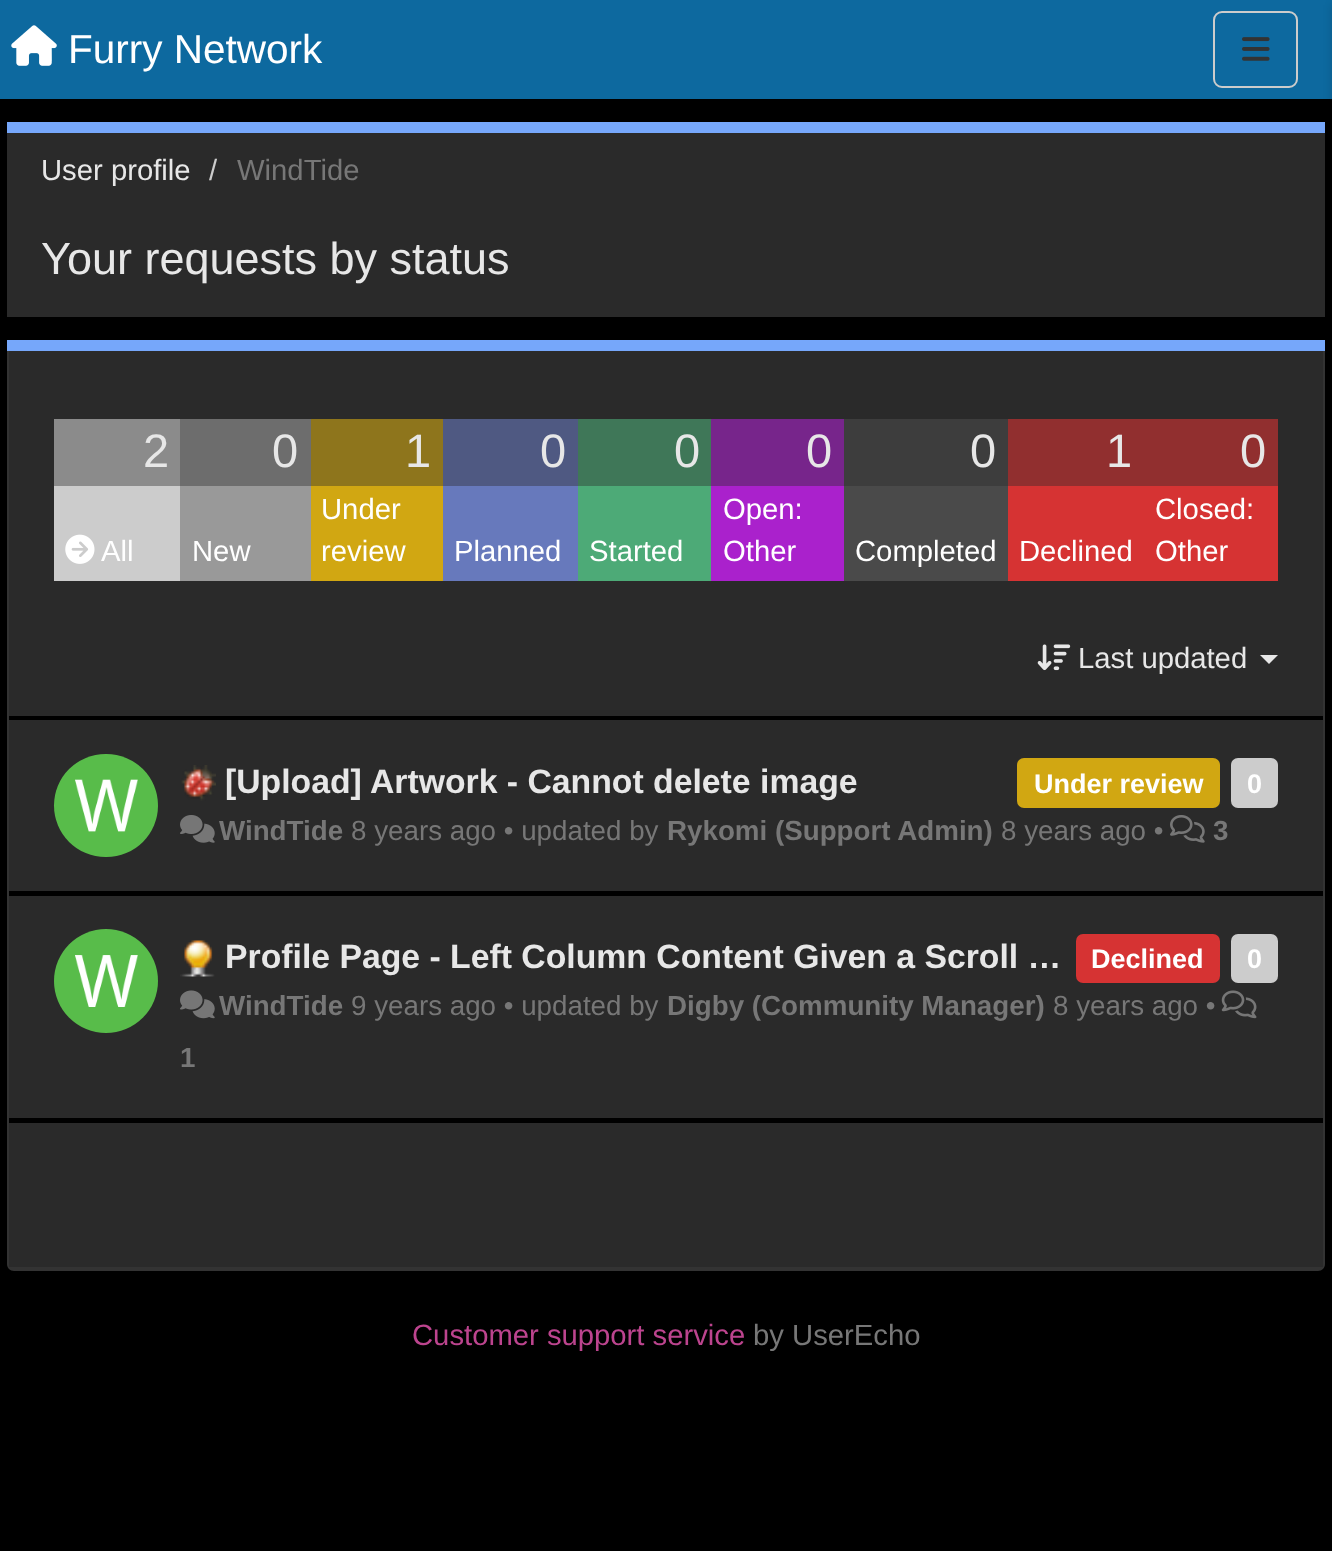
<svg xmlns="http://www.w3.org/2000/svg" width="1332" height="1551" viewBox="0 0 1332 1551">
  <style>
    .t1 { font: 40.5px Liberation Sans; fill: #fff; }
    .t2 { font: 29.25px Liberation Sans; fill: #e7e7e7; }
    .t3 { font: 29.25px Liberation Sans; fill: #ccc; }
    .t4 { font: 29.25px Liberation Sans; fill: #777; }
    .t5 { font: 45px Liberation Sans; fill: #e7e7e7; }
    .t6 { font: 47px Liberation Sans; fill: #e7e7e7; }
    .t7 { font: 29.25px Liberation Sans; fill: #fff; }
    .t8 { font: bold 33.75px Liberation Sans; fill: #e7e7e7; }
    .t9 { font: bold 27px Liberation Sans; fill: #fff; }
    .t10 { font: bold 27.75px Liberation Sans; fill: #777; }
    .t11 { font: 27.75px Liberation Sans; fill: #777; }
    .t12 { font: 29.25px Liberation Sans; fill: #bc448e; }
  </style>
  <rect width="100%" height="100%" fill="#000"/>
  <rect x="0" y="0" width="1332" height="99" fill="#0d699f"/>
  <image x="11" y="25" width="46" height="41" href="images/1.png"/>
  <text x="68" y="63" class="t1">Furry Network</text>
  <rect x="1214" y="12" width="83" height="75" rx="8" fill="none" stroke="#ccc" stroke-width="2"/>
  <image x="1242" y="37" width="28" height="24" href="images/2.png"/>
  <rect x="1332" y="5" width="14" height="99" fill="#00000026" filter="blur(4.5px)"/>
  <rect x="7" y="133" width="1318" height="184" fill="#2a2a2a"/>
  <rect x="7" y="122" width="1318" height="11" fill="#76a7fa"/>
  <text x="41" y="180" class="t2">User profile</text>
  <text x="209" y="180" class="t3">/</text>
  <text x="237" y="180" class="t4">WindTide</text>
  <text x="41" y="274" class="t5">Your requests by status</text>
  <rect x="7" y="340" width="1318" height="11" fill="#76a7fa"/>
  <path d="M7 351H1325V1264C1325 1268 1322 1271 1318 1271H14C10 1271 7 1268 7 1264ZM9 351H1323V1264C1323 1266 1321 1267 1318 1267H14C11 1267 9 1266 9 1264Z" fill="#333" fill-rule="evenodd"/>
  <rect x="9" y="351" width="1314" height="365" fill="#2a2a2a"/>
  <rect x="54" y="419" width="126" height="67" fill="#8b8b8b"/>
  <text x="143" y="467" class="t6">2</text>
  <rect x="180" y="419" width="131" height="67" fill="#6d6d6d"/>
  <text x="272" y="467" class="t6">0</text>
  <rect x="311" y="419" width="132" height="67" fill="#8e751c"/>
  <text x="405" y="467" class="t6">1</text>
  <rect x="443" y="419" width="135" height="67" fill="#4f5982"/>
  <text x="540" y="467" class="t6">0</text>
  <rect x="578" y="419" width="133" height="67" fill="#3f7758"/>
  <text x="674" y="467" class="t6">0</text>
  <rect x="711" y="419" width="133" height="67" fill="#77258b"/>
  <text x="806" y="467" class="t6">0</text>
  <rect x="844" y="419" width="164" height="67" fill="#3d3d3d"/>
  <text x="970" y="467" class="t6">0</text>
  <rect x="1008" y="419" width="270" height="67" fill="#912f2f"/>
  <text x="1106" y="467" class="t6">1</text>
  <text x="1240" y="467" class="t6">0</text>
  <rect x="54" y="486" width="126" height="95" fill="#ccc"/>
  <image x="65" y="534" width="30" height="30" href="images/3.png"/>
  <text x="101" y="561" class="t7">All</text>
  <rect x="180" y="486" width="131" height="95" fill="#999"/>
  <text x="192" y="561" class="t7">New</text>
  <rect x="311" y="486" width="132" height="95" fill="#d1a712"/>
  <text x="321" y="519" class="t7">Under</text>
  <text x="321" y="561" class="t7">review</text>
  <rect x="443" y="486" width="135" height="95" fill="#6779bc"/>
  <text x="454" y="561" class="t7">Planned</text>
  <rect x="578" y="486" width="133" height="95" fill="#4daa77"/>
  <text x="589" y="561" class="t7">Started</text>
  <rect x="711" y="486" width="133" height="95" fill="#aa21cc"/>
  <text x="723" y="519" class="t7">Open:</text>
  <text x="723" y="561" class="t7">Other</text>
  <rect x="844" y="486" width="164" height="95" fill="#4a4a4a"/>
  <text x="855" y="561" class="t7">Completed</text>
  <rect x="1008" y="486" width="270" height="95" fill="#d63333"/>
  <text x="1019" y="561" class="t7">Declined</text>
  <text x="1155" y="519" class="t7">Closed:</text>
  <text x="1155" y="561" class="t7">Other</text>
  <image x="1037" y="644" width="34" height="27" href="images/4.png"/>
  <text x="1078" y="668" class="t2">Last updated</text>
  <path d="M1260 655H1278L1269 664Z" fill="#e7e7e7"/>
  <rect x="9" y="720" width="1314" height="171" fill="#2a2a2a"/>
  <rect x="54" y="754" width="104" height="103" rx="51.5" fill="#58bc4a"/>
  <image x="75" y="779" width="63" height="53" href="images/5.png"/>
  <image x="181" y="765" width="35" height="36" href="images/6.png"/>
  <text x="225" y="793" class="t8">[Upload] Artwork - Cannot delete image</text>
  <rect x="1017" y="758" width="203" height="50" rx="7" fill="#d1a712"/>
  <text x="1034" y="793" class="t9">Under review</text>
  <rect x="1231" y="758" width="47" height="50" rx="7" fill="#ccc"/>
  <text x="1247" y="793" class="t9">0</text>
  <image x="180" y="815" width="35" height="28" href="images/7.png"/>
  <text x="219" y="840" class="t10">WindTide</text>
  <text x="351" y="840" class="t11">8 years ago • updated by</text>
  <text x="667" y="840" class="t10">Rykomi (Support Admin)</text>
  <text x="1001" y="840" class="t11">8 years ago •</text>
  <image x="1170" y="815" width="35" height="28" href="images/8.png"/>
  <text x="1213" y="840" class="t10">3</text>
  <rect x="9" y="896" width="1314" height="222" fill="#2a2a2a"/>
  <circle cx="106" cy="981" r="52" fill="#58bc4a"/>
  <image x="75" y="955" width="63" height="52" href="images/9.png"/>
  <image x="180" y="940" width="35" height="37" href="images/10.png"/>
  <text x="225" y="968" class="t8">Profile Page - Left Column Content Given a Scroll …</text>
  <rect x="1076" y="934" width="144" height="49" rx="7" fill="#d63333"/>
  <text x="1091" y="968" class="t9">Declined</text>
  <rect x="1231" y="934" width="47" height="49" rx="7" fill="#ccc"/>
  <text x="1247" y="968" class="t9">0</text>
  <image x="180" y="990" width="35" height="29" href="images/11.png"/>
  <text x="219" y="1015" class="t10">WindTide</text>
  <text x="351" y="1015" class="t11">9 years ago • updated by</text>
  <text x="667" y="1015" class="t10">Digby (Community Manager)</text>
  <text x="1053" y="1015" class="t11">8 years ago •</text>
  <image x="1221" y="990" width="36" height="29" href="images/12.png"/>
  <text x="180" y="1067" class="t10">1</text>
  <rect x="9" y="1123" width="1314" height="144" fill="#2a2a2a"/>
  <text x="412" y="1345" class="t12">Customer support service</text>
  <text x="753" y="1345" class="t4">by UserEcho</text>
</svg>
